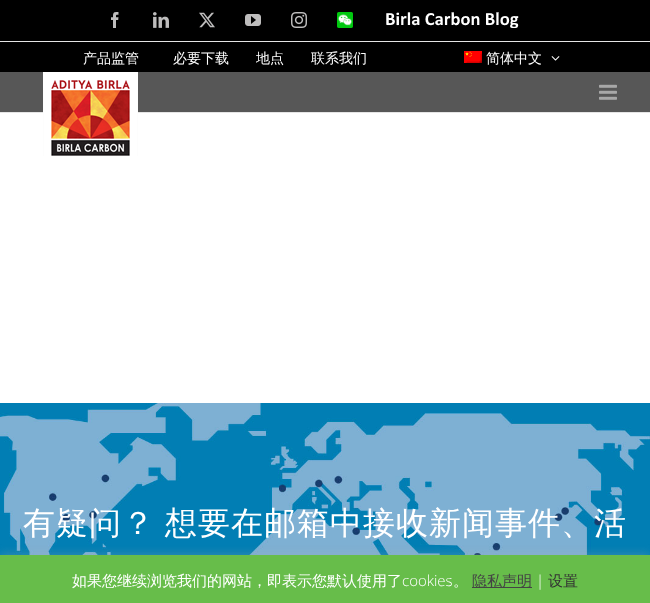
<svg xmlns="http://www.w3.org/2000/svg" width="650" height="603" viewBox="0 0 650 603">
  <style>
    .t1 { font: 500 14px WenQuanYi Zen Hei; fill: #fff; }
    .t2 { font: 500 32px WenQuanYi Zen Hei; letter-spacing: 1px; fill: #fff; }
    .t3 { font: 500 15px WenQuanYi Zen Hei; fill: #fff; }
    .t4 { font: 300 15px Open Sans; fill: #fff; }
    .t5 { font: 500 15px WenQuanYi Zen Hei; fill: #444; }
    .t6 { font: 500 15px WenQuanYi Zen Hei; fill: #333; }
  </style>
  <rect width="100%" height="100%" fill="#fff"/>
  <rect x="0" y="0" width="650" height="72" fill="#000"/>
  <rect x="0" y="41" width="650" height="1" fill="#e5e5e5"/>
  <image x="111" y="12" width="8" height="16" href="images/1.png"/>
  <image x="153" y="12" width="16" height="16" href="images/2.png"/>
  <image x="199" y="12" width="16" height="16" href="images/3.png"/>
  <image x="245" y="14" width="16" height="12" href="images/4.png"/>
  <image x="291" y="12" width="16" height="16" href="images/5.png"/>
  <image x="337" y="12" width="16" height="16" href="images/6.png"/>
  <image x="386" y="12" width="133" height="16" href="images/7.png"/>
  <text x="83" y="63" class="t1">产品监管</text>
  <text x="173" y="63" class="t1">必要下载</text>
  <text x="256" y="63" class="t1">地点</text>
  <text x="311" y="63" class="t1">联系我们</text>
  <image x="464" y="51" width="18" height="12" href="images/8.png"/>
  <text x="486" y="63" class="t1">简体中文</text>
  <image x="551" y="56" width="9" height="5" href="images/9.png"/>
  <rect x="0" y="72" width="650" height="40" fill="#575757"/>
  <rect x="0" y="112" width="650" height="1" fill="#e5e5e5"/>
  <image x="43" y="72" width="95" height="84" href="images/10.png"/>
  <image x="599" y="84" width="18" height="16" href="images/11.png"/>
  <image x="0" y="403" width="650" height="152" href="images/12.png"/>
  <text x="23" y="534" class="t2">有疑问？</text>
  <text x="165" y="534" class="t2">想要在邮箱中接收新闻事件、活</text>
  <rect x="0" y="554" width="650" height="48" fill="#acabab4d" filter="blur(5px)"/>
  <rect x="0" y="555" width="650" height="48" fill="#67bd4a"/>
  <text x="72" y="586" class="t3">如果您继续浏览我们的网站，即表示您默认使用了</text>
  <text x="402" y="586" class="t4">cookies</text>
  <text x="453" y="586" class="t3">。</text>
  <rect x="472" y="587" width="60" height="1" fill="#444"/>
  <text x="472" y="586" class="t5">隐私声明</text>
  <text x="536" y="586" class="t4">|</text>
  <text x="548" y="586" class="t6">设置</text>
</svg>
